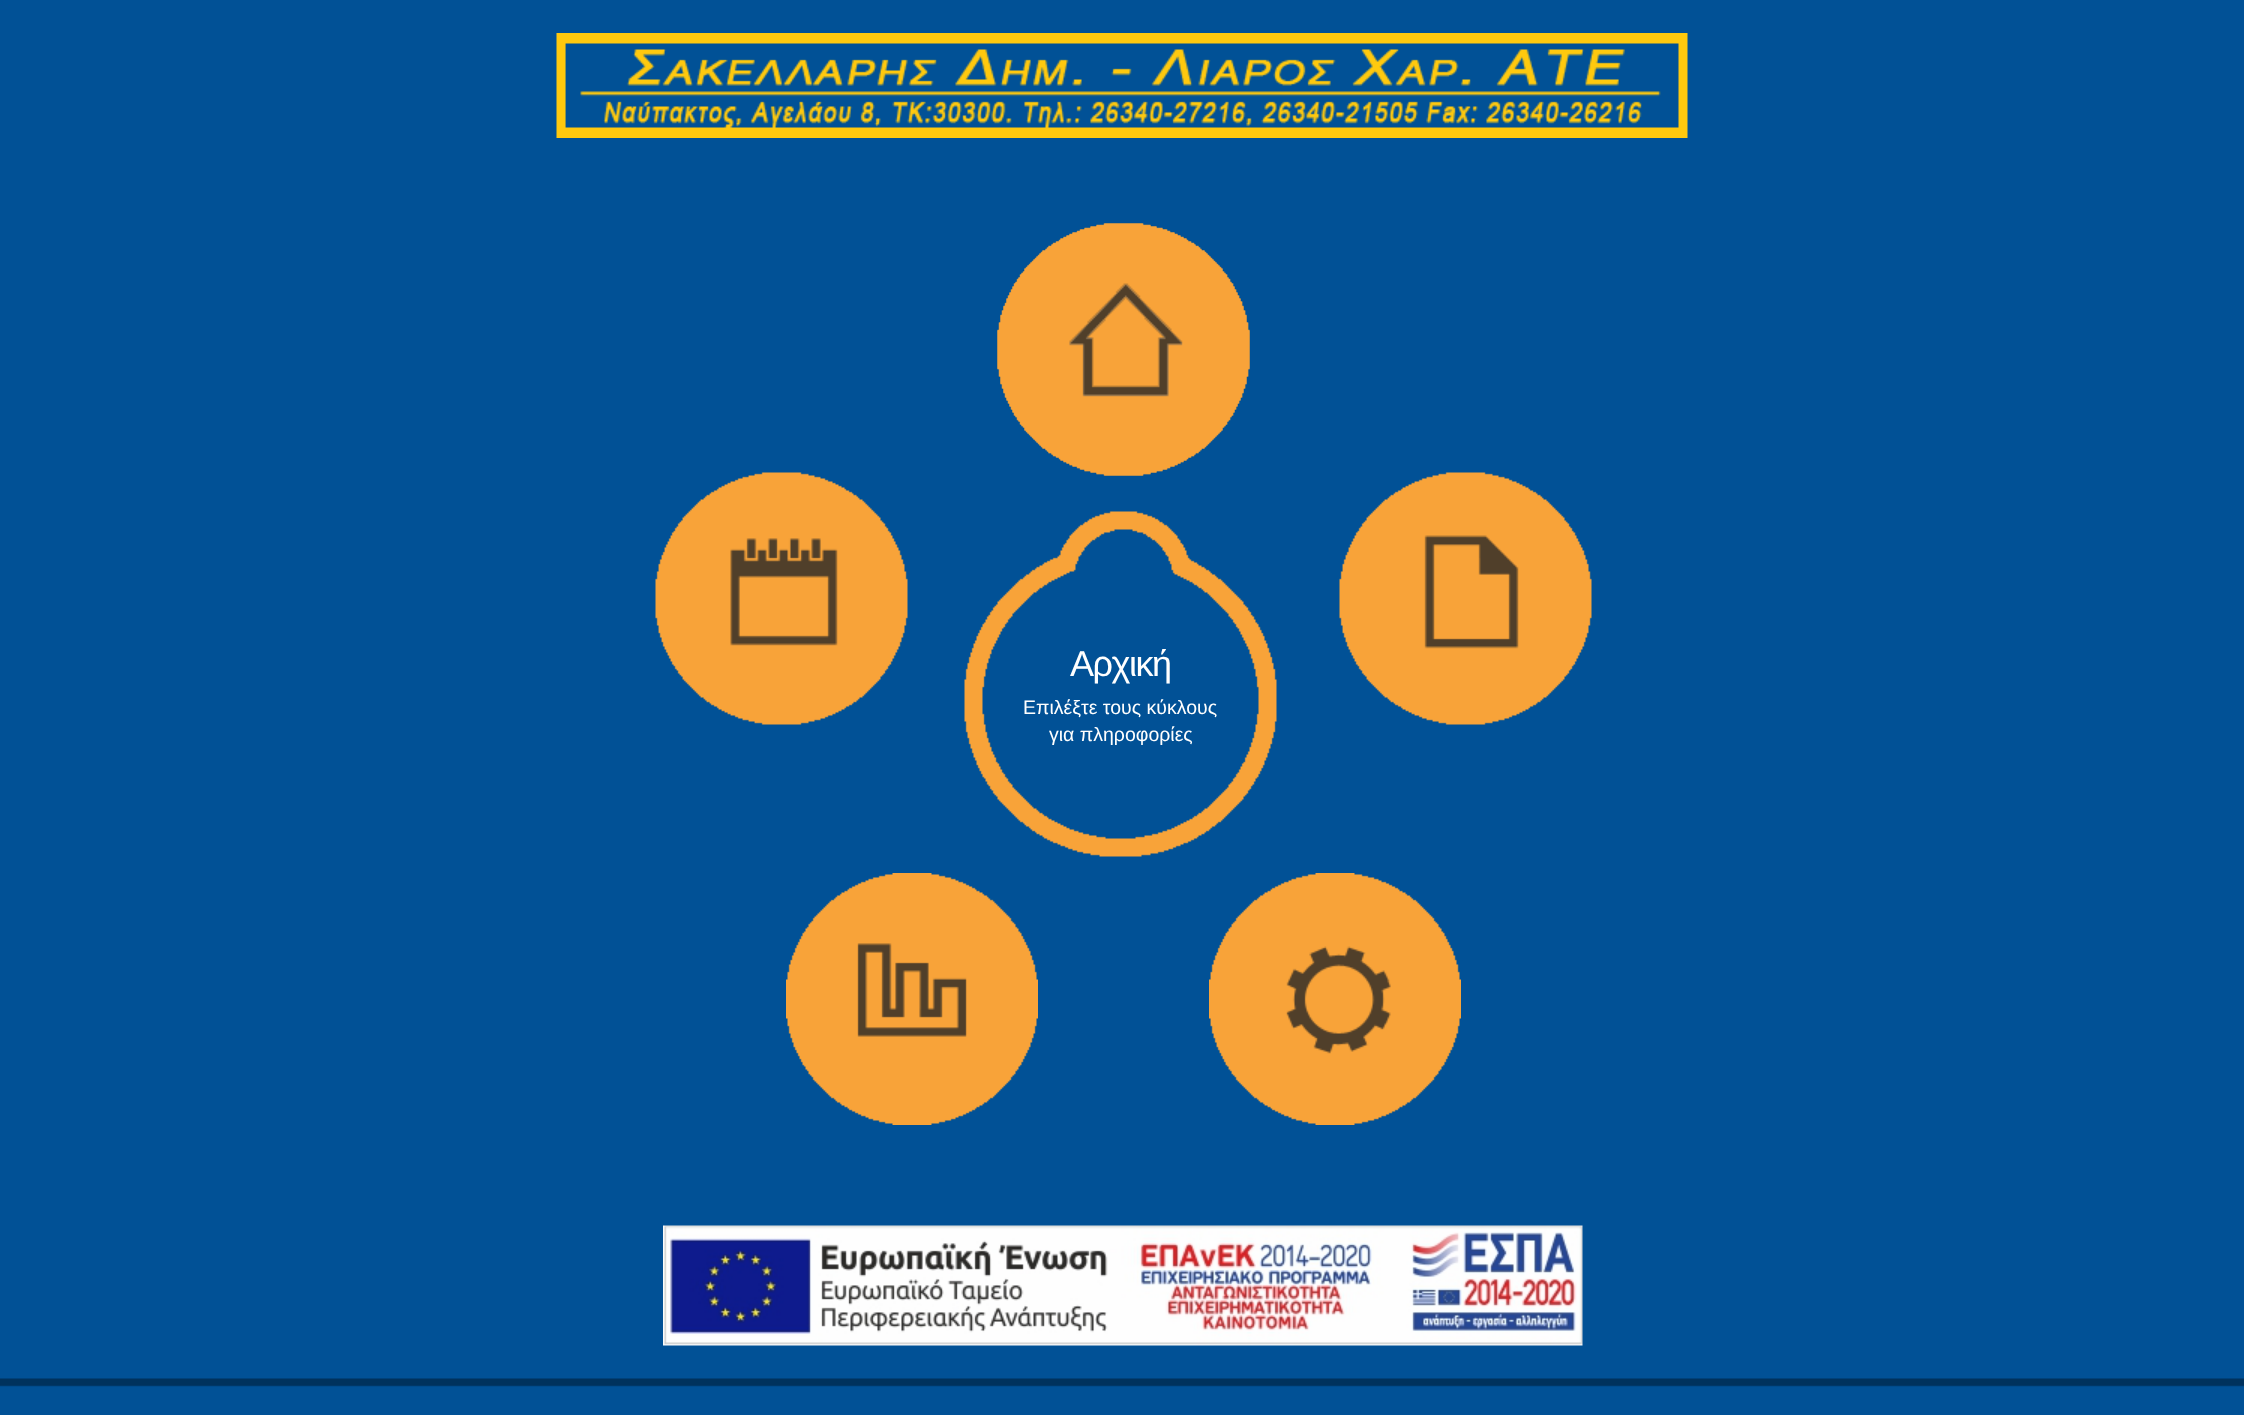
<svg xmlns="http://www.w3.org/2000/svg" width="2244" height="1415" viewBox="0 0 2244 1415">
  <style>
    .t1 { font: 36px Liberation Sans; letter-spacing: -1.5px; fill: #fff; }
    .t2 { font: 19.5px Liberation Sans; fill: #fff; }
  </style>
  <rect width="100%" height="100%" fill="#015196"/>
  <image x="556" y="33" width="1132" height="105" href="images/1.png"/>
  <image x="997" y="223" width="253" height="253" href="images/2.png"/>
  <image x="997" y="223" width="253" height="253" href="images/3.png"/>
  <image x="655" y="472" width="253" height="253" href="images/4.png"/>
  <image x="1339" y="472" width="253" height="253" href="images/5.png"/>
  <image x="786" y="873" width="252" height="252" href="images/6.png"/>
  <image x="1209" y="873" width="252" height="252" href="images/7.png"/>
  <image x="964" y="511" width="313" height="346" href="images/8.png"/>
  <text x="1070" y="676" class="t1">Αρχική</text>
  <text x="1023" y="714" class="t2">Επιλέξτε τους κύκλους</text>
  <text x="1049" y="741" class="t2">για πληροφορίες</text>
  <image x="663" y="1225" width="920" height="121" href="images/9.png"/>
  <image x="0" y="1378" width="2244" height="9" href="images/10.png"/>
</svg>
